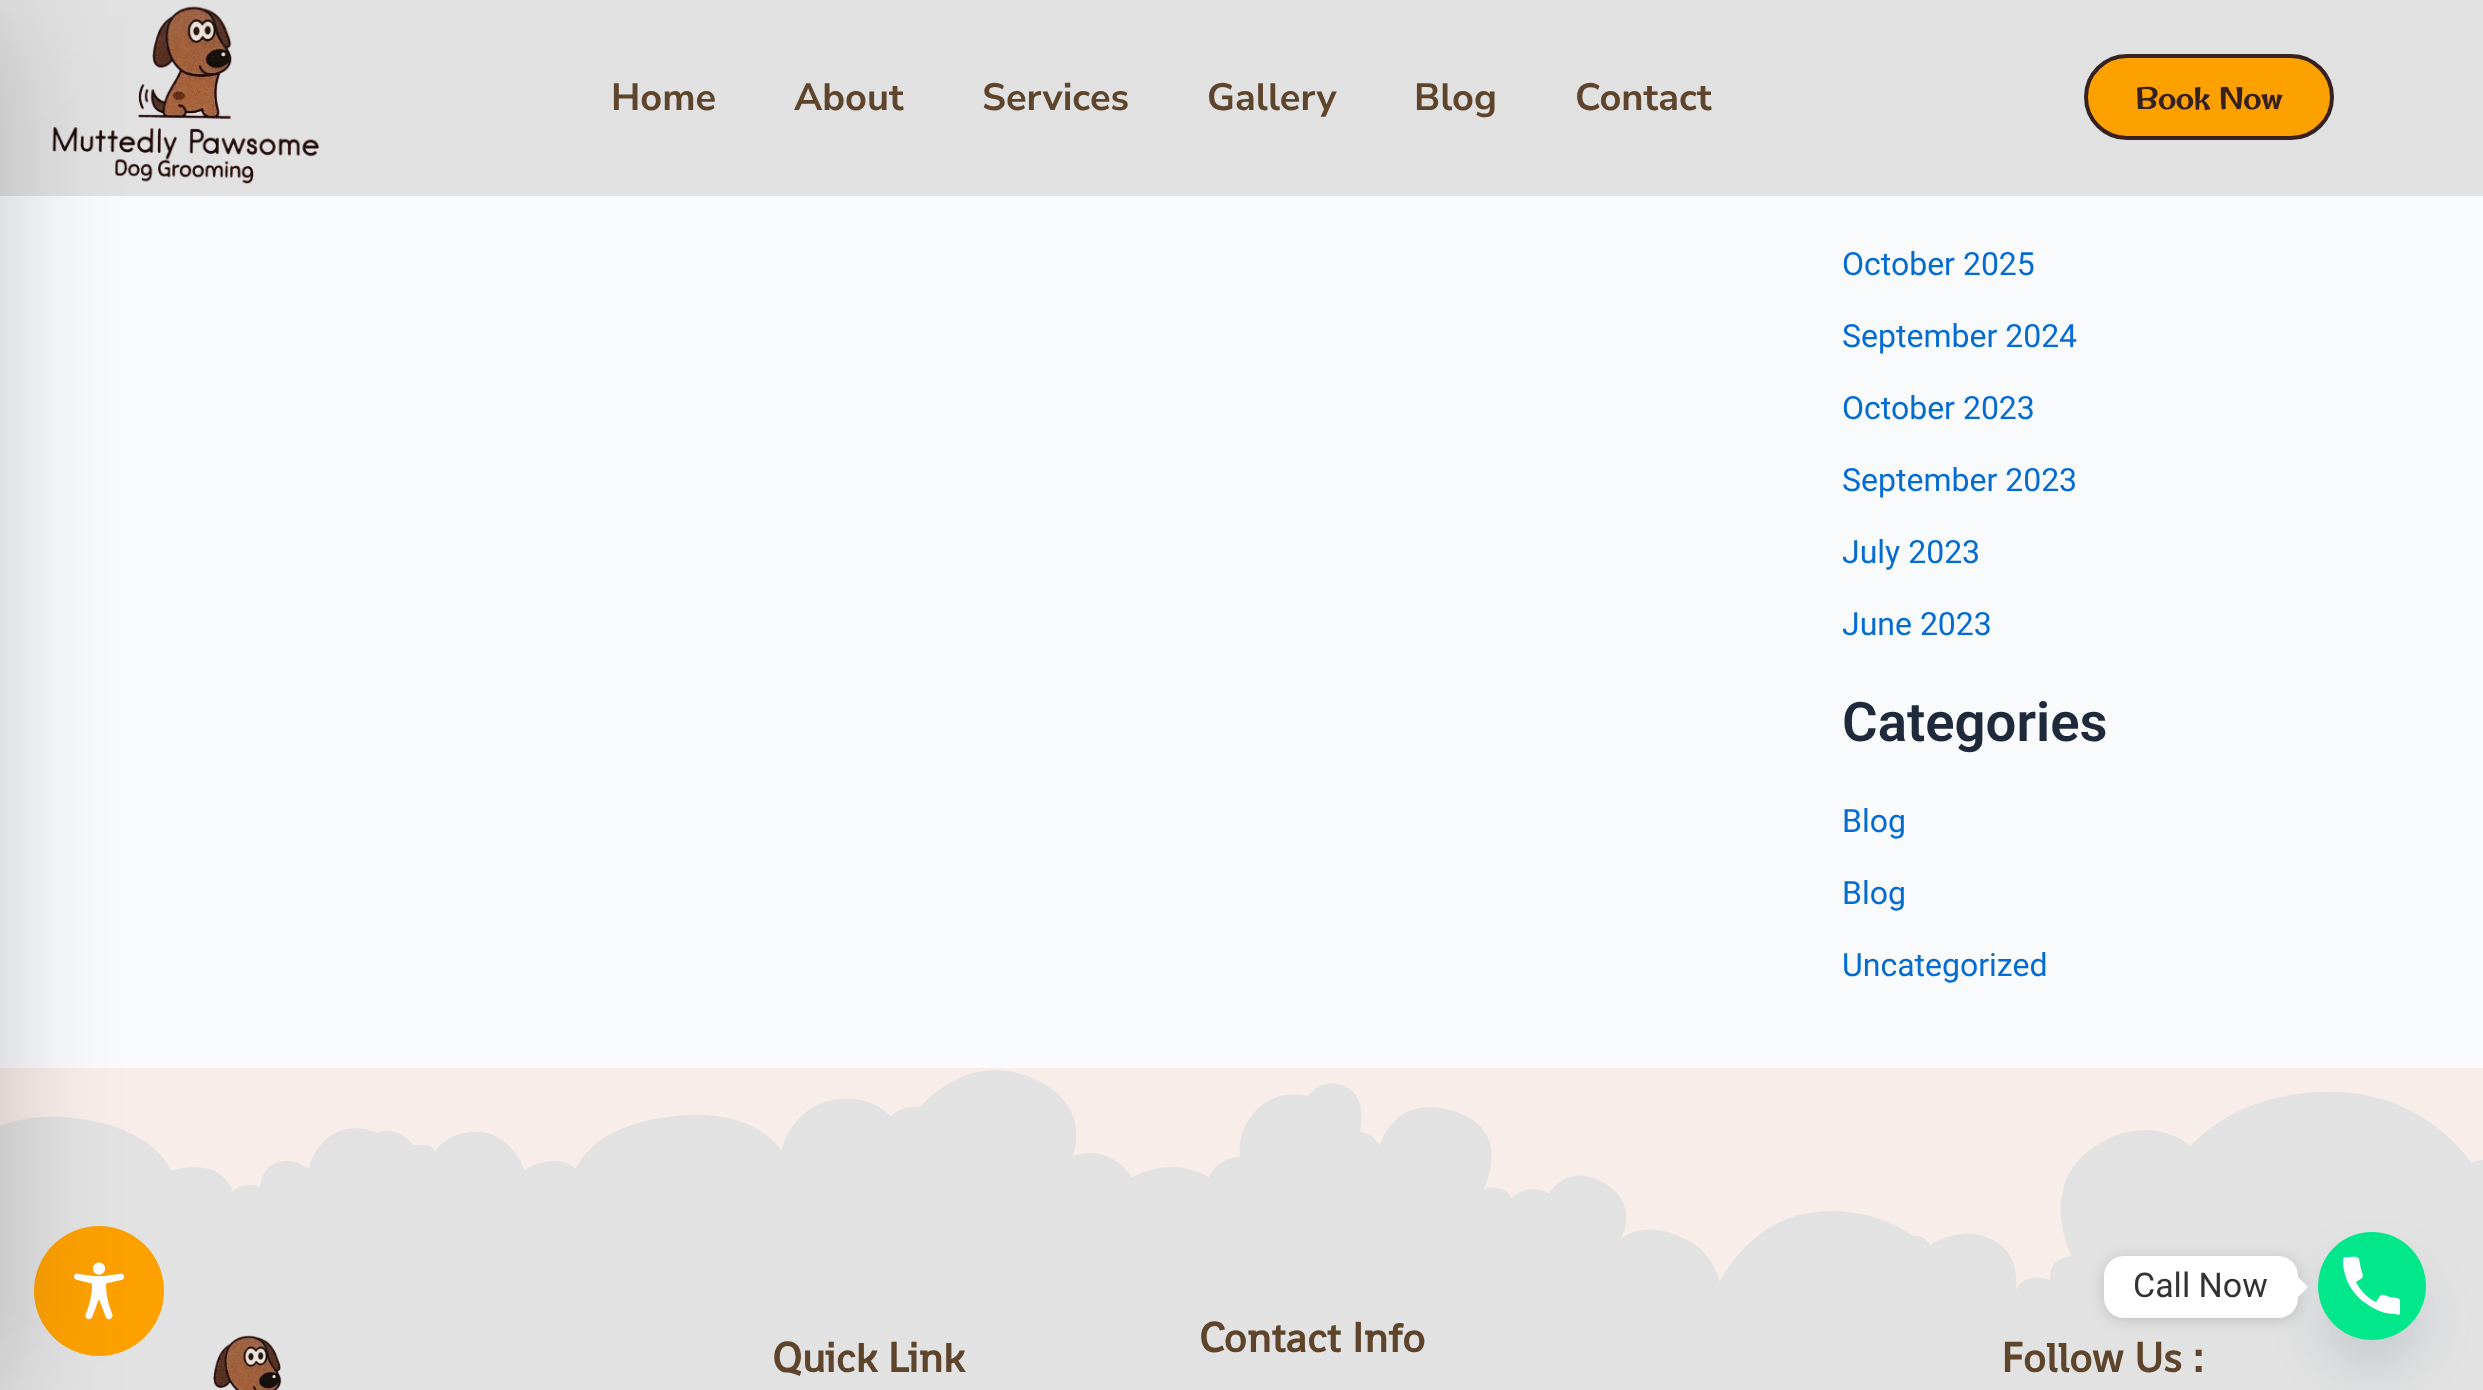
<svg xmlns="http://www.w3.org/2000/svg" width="2483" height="1390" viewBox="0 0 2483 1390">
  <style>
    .t1 { font: bold 38px Nunito Sans; fill: #5d442b; }
    .t2 { font: bold 30px Original Surfer; fill: #362121; }
    .t3 { font: 32px Roboto; fill: #046bd2; }
    .t4 { font: 600 54.5px Roboto; fill: #1e293b; }
    .t5 { font: bold 42px Shanti; fill: #5d442b; }
    .t6 { font: 34px Roboto; fill: #333; }
  </style>
  <rect width="100%" height="100%" fill="#f9fafb"/>
  <rect x="0" y="0" width="2483" height="196" fill="#e1e1e1"/>
  <image x="52" y="6" width="268" height="178" href="images/1.png"/>
  <rect x="0" y="1070" width="2483" height="320" fill="#e2e2e2"/>
  <image x="0" y="1068" width="2483" height="222" href="images/2.png"/>
  <circle cx="99" cy="1291" r="65" fill="#fda100"/>
  <image x="73" y="1262" width="52" height="58" href="images/4.png"/>
  <rect x="-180" y="20" width="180" height="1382" fill="#00000033" filter="blur(60px)"/>
  <text x="611" y="110" class="t1">Home</text>
  <text x="794" y="110" class="t1">About</text>
  <text x="982" y="110" class="t1">Services</text>
  <text x="1207" y="110" class="t1">Gallery</text>
  <text x="1414" y="110" class="t1">Blog</text>
  <text x="1575" y="110" class="t1">Contact</text>
  <rect x="2086" y="56" width="246" height="82" rx="41" fill="#fda100" stroke="#362121" stroke-width="4"/>
  <text x="2135" y="109" class="t2">Book Now</text>
  <text x="1842" y="275" class="t3">October 2025</text>
  <text x="1842" y="347" class="t3">September 2024</text>
  <text x="1842" y="419" class="t3">October 2023</text>
  <text x="1842" y="491" class="t3">September 2023</text>
  <text x="1842" y="563" class="t3">July 2023</text>
  <text x="1842" y="635" class="t3">June 2023</text>
  <text x="1842" y="741" class="t4">Categories</text>
  <text x="1842" y="832" class="t3">Blog</text>
  <text x="1842" y="904" class="t3">Blog</text>
  <text x="1842" y="976" class="t3">Uncategorized</text>
  <image x="213" y="1335" width="69" height="55" href="images/3.png"/>
  <text x="772" y="1372" class="t5">Quick Link</text>
  <text x="1199" y="1352" class="t5">Contact Info</text>
  <text x="2001" y="1372" class="t5">Follow Us :</text>
  <rect x="2318" y="1264" width="108" height="108" rx="54" fill="#49687e29" filter="blur(24px)"/>
  <circle cx="2372" cy="1286" r="54" fill="#03e78b"/>
  <rect x="2104" y="1258" width="194" height="62" rx="20" fill="#00000026" filter="blur(7.5px)"/>
  <rect x="2104" y="1256" width="194" height="62" rx="20" fill="#fff"/>
  <text x="2133" y="1297" class="t6">Call Now</text>
  <path d="M2298 1297V1277L2308 1287Z" fill="#fff"/>
  <path d="M2397 1298L2390 1297C2387 1296 2382 1293 2380 1296L2376 1302C2367 1298 2360 1290 2356 1282C2364 1277 2364 1278 2361 1269L2359 1259C2357 1256 2353 1257 2350 1257C2342 1257 2343 1257 2343 1265C2344 1272 2346 1278 2348 1283C2353 1292 2359 1299 2367 1304C2375 1310 2385 1314 2395 1314C2397 1315 2399 1315 2400 1314V1301C2400 1299 2398 1298 2397 1298Z" fill="#fff"/>
</svg>
